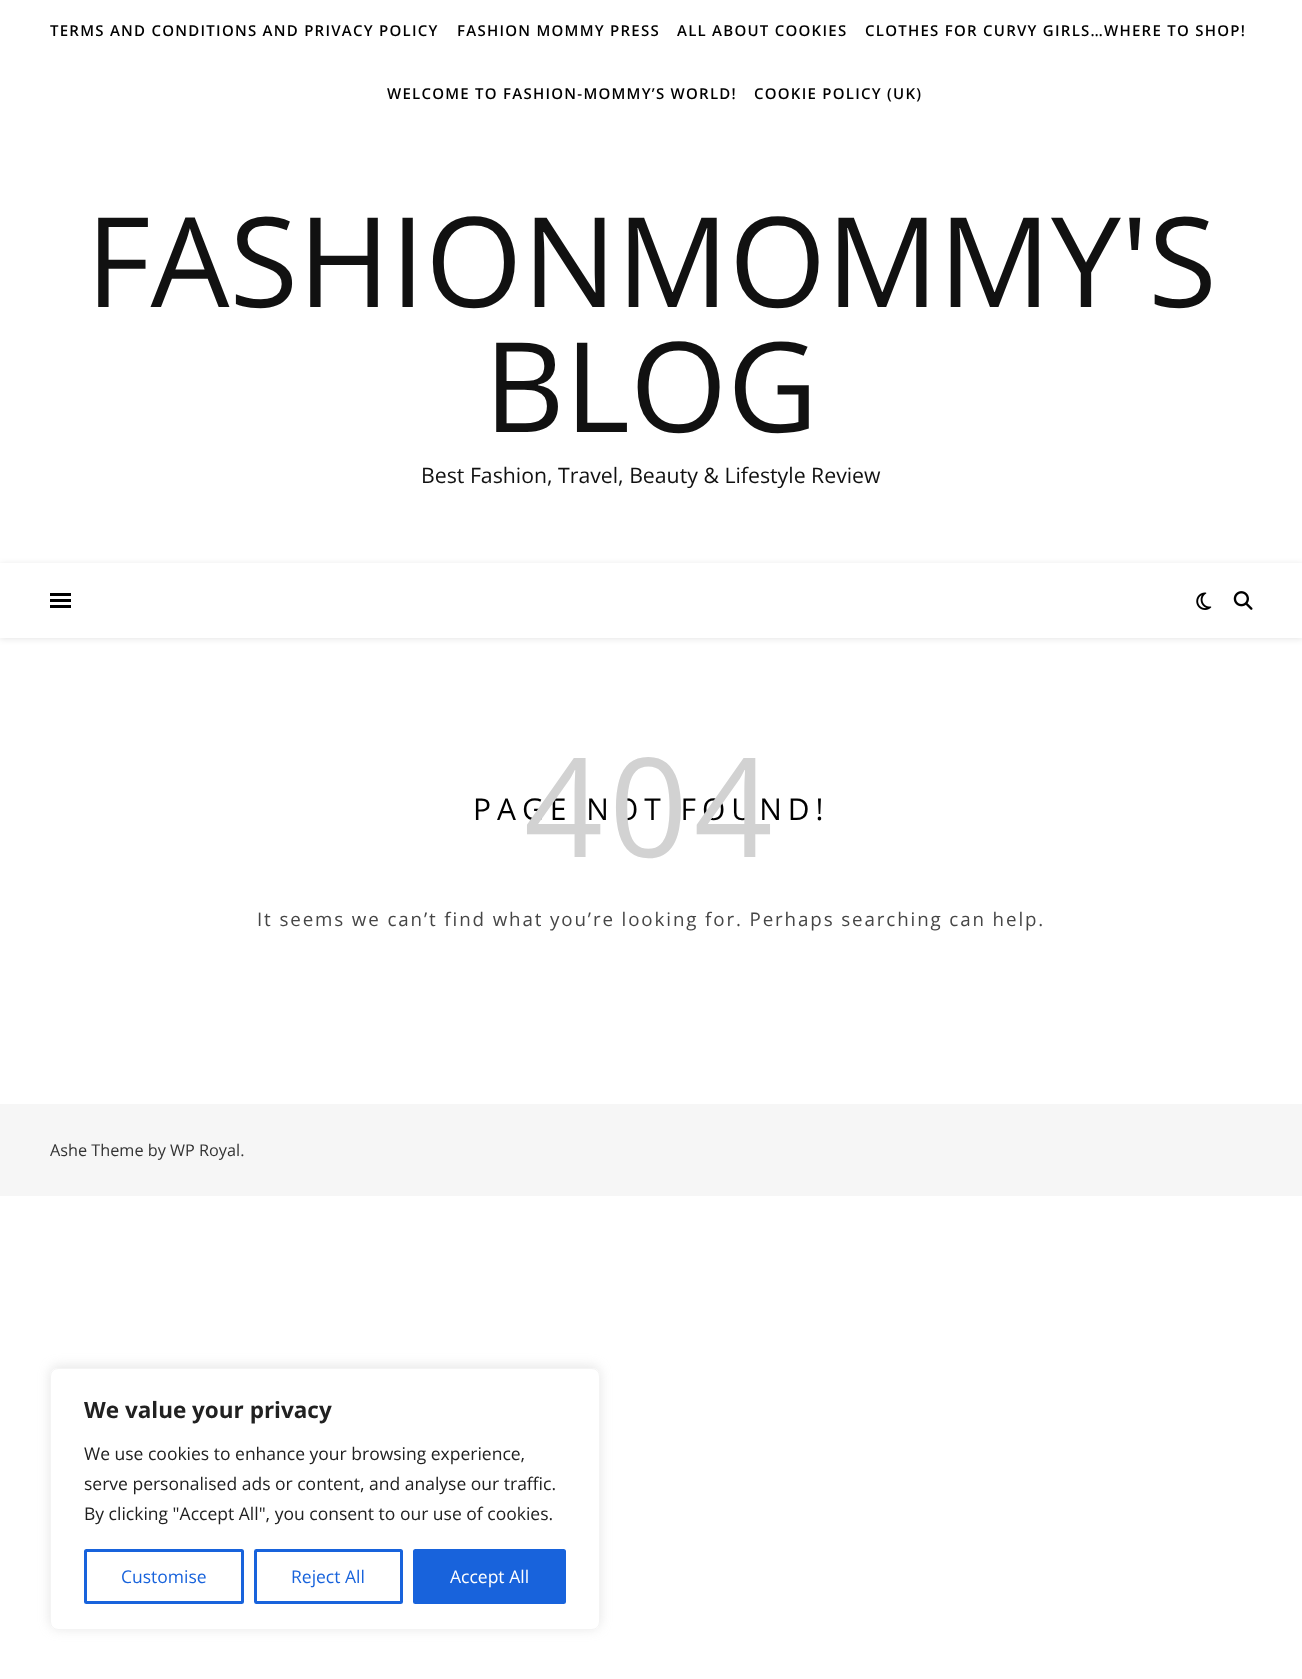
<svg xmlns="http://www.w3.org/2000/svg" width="1302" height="1679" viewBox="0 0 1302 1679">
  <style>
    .t1 { font: 600 15px Open Sans; letter-spacing: 1.25px; fill: #000; }
    .t2 { font: 125px Open Sans; fill: #111; }
    .t3 { font: 21.25px Open Sans; fill: #111; }
    .t4 { font: 30px Open Sans; letter-spacing: 6px; fill: #000; }
    .t5 { font: 138px Open Sans; letter-spacing: 6px; fill: #d2d2d2; }
    .t6 { font: 18.75px Open Sans; letter-spacing: 1.88px; fill: #464646; }
    .t7 { font: 16.25px Open Sans; fill: #333; }
    .t8 { font: bold 22.5px Open Sans; fill: #212121; }
    .t9 { font: 17.5px Open Sans; fill: #212121; }
    .t10 { font: 17.5px Open Sans; fill: #1863dc; }
    .t11 { font: 17.5px Open Sans; fill: #fff; }
  </style>
  <defs>
    <clipPath id="clip1"><path d="M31 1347H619V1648H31ZM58 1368H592C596.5 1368 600 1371.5 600 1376V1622C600 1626.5 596.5 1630 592 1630H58C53.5 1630 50 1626.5 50 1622V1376C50 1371.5 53.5 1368 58 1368Z" clip-rule="evenodd"/></clipPath>
  </defs>
  <rect width="100%" height="100%" fill="#fff"/>
  <text x="50" y="36" class="t1">TERMS AND CONDITIONS AND PRIVACY POLICY</text>
  <text x="457" y="36" class="t1">FASHION MOMMY PRESS</text>
  <text x="677" y="36" class="t1">ALL ABOUT COOKIES</text>
  <text x="865" y="36" class="t1">CLOTHES FOR CURVY GIRLS…WHERE TO SHOP!</text>
  <text x="387" y="99" class="t1">WELCOME TO FASHION-MOMMY’S WORLD!</text>
  <text x="754" y="99" class="t1">COOKIE POLICY (UK)</text>
  <text x="86" y="307" class="t2">FASHIONMOMMY'S</text>
  <text x="484" y="432" class="t2">BLOG</text>
  <text x="421" y="483" class="t3">Best Fashion, Travel, Beauty &amp; Lifestyle Review</text>
  <rect x="0" y="564" width="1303" height="75" fill="#0000001a" filter="blur(3px)"/>
  <rect x="0" y="563" width="1302" height="75" fill="#fff"/>
  <rect x="50" y="593" width="21" height="3" fill="#000"/>
  <rect x="50" y="599" width="21" height="3" fill="#000"/>
  <rect x="50" y="605" width="21" height="3" fill="#000"/>
  <image x="1196" y="592" width="16" height="18" href="images/1.png"/>
  <image x="1233" y="591" width="20" height="19" href="images/2.png"/>
  <text x="473" y="820" class="t4">PAGE NOT FOUND!</text>
  <text x="524" y="857" class="t5">404</text>
  <text x="257" y="926" class="t6">It seems we can’t find what you’re looking for. Perhaps searching can help.</text>
  <rect x="0" y="1104" width="1302" height="92" fill="#f6f6f6"/>
  <text x="50" y="1156" class="t7">Ashe Theme by WP Royal.</text>
  <g clip-path="url(#clip1)">
    <rect x="50" y="1366" width="550" height="263" rx="8" fill="#acabab4d" filter="blur(6px)"/>
  </g>
  <rect x="50.5" y="1368.5" width="549" height="261" rx="7.5" fill="none" stroke="#f4f4f4"/>
  <text x="84" y="1418" class="t8">We value your privacy</text>
  <text x="84" y="1460" class="t9">We use cookies to enhance your browsing experience,</text>
  <text x="84" y="1490" class="t9">serve personalised ads or content, and analyse our traffic.</text>
  <text x="84" y="1520" class="t9">By clicking "Accept All", you consent to our use of cookies.</text>
  <rect x="85.5" y="1550.5" width="157" height="52" rx="1" fill="none" stroke="#1863dc" stroke-width="3"/>
  <text x="121" y="1583" class="t10">Customise</text>
  <rect x="255.5" y="1550.5" width="146" height="52" rx="1" fill="none" stroke="#1863dc" stroke-width="3"/>
  <text x="291" y="1583" class="t10">Reject All</text>
  <rect x="414.5" y="1550.5" width="150" height="52" rx="1" fill="#1863dc" stroke="#1863dc" stroke-width="3"/>
  <text x="450" y="1583" class="t11">Accept All</text>
</svg>
